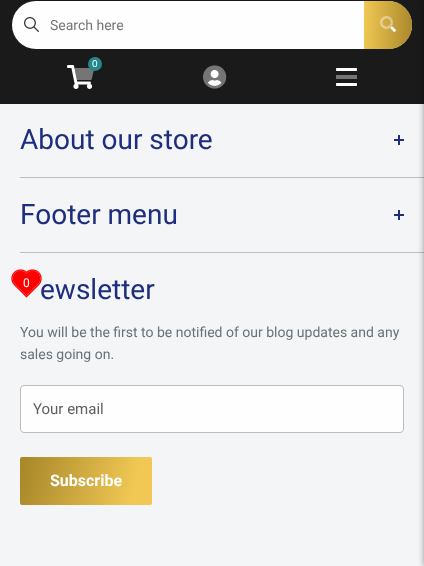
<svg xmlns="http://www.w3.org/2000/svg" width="424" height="566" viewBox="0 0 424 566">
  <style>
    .t1 { font: 14px Roboto; fill: #757575; }
    .t2 { font: 10px Liberation Sans; fill: #fff; }
    .t3 { font: 28px Roboto; fill: #1e2d7d; }
    .t4 { font: 14px Roboto; fill: #677279; }
    .t5 { font: 15px Roboto; fill: #5f5f5f; }
    .t6 { font: bold 16px Roboto; fill: #fff; }
    .t7 { font: 12px Roboto; fill: #fff; }
  </style>
  <defs>
    <linearGradient id="g1" gradientUnits="userSpaceOnUse" x1="413" y1="26" x2="363" y2="24"><stop offset="0" stop-color="#a9882a"/><stop offset="1" stop-color="#f1c854"/></linearGradient>
    <linearGradient id="g2" gradientUnits="userSpaceOnUse" x1="18" y1="465" x2="154" y2="497"><stop offset="0.03" stop-color="#a9882a"/><stop offset="0.85" stop-color="#f1c854"/></linearGradient>
  </defs>
  <rect width="100%" height="100%" fill="#f3f5f6"/>
  <rect x="0" y="0" width="424" height="104" fill="#1a1a1a"/>
  <rect x="12" y="1" width="400" height="48" rx="24" fill="#fefefe"/>
  <image x="24" y="17" width="15" height="15" href="images/1.png"/>
  <text x="50" y="30" class="t1">Search here</text>
  <path d="M364 1H388C401.5 1 412 11.5 412 25C412 38.5 401.5 49 388 49H364Z" fill="url(#g1)"/>
  <image x="390" y="26" width="6" height="6" href="images/3.png"/>
  <image x="380" y="16" width="13" height="13" href="images/2.png"/>
  <image x="67" y="65" width="26" height="24" href="images/4.png"/>
  <image x="74" y="68" width="20" height="12" href="images/5.png"/>
  <circle cx="95" cy="64" r="7" fill="#25878c"/>
  <text x="92" y="67" class="t2">0</text>
  <image x="207" y="69" width="15" height="17" href="images/7.png"/>
  <image x="203" y="65" width="24" height="24" href="images/6.png"/>
  <image x="336" y="68" width="21" height="18" href="images/8.png"/>
  <rect x="336" y="75" width="21" height="4" fill="#757575"/>
  <rect x="20" y="177" width="404" height="1" fill="#bdbdbd"/>
  <text x="20" y="149" class="t3">About our store</text>
  <rect x="398" y="135" width="2" height="10" fill="#1e2d7d"/>
  <rect x="394" y="139" width="10" height="2" fill="#1e2d7d"/>
  <rect x="20" y="252" width="404" height="1" fill="#bdbdbd"/>
  <text x="20" y="224" class="t3">Footer menu</text>
  <rect x="398" y="210" width="2" height="10" fill="#1e2d7d"/>
  <rect x="394" y="214" width="10" height="2" fill="#1e2d7d"/>
  <text x="40" y="299" class="t3">ewsletter</text>
  <text x="20" y="337" class="t4">You will be the first to be notified of our blog updates and any</text>
  <text x="20" y="359" class="t4">sales going on.</text>
  <rect x="20.5" y="385.5" width="383" height="47" rx="3.5" fill="#fefefe" stroke="#bdbdbd"/>
  <text x="33" y="414" class="t5">Your email</text>
  <rect x="20" y="457" width="132" height="48" rx="2" fill="url(#g2)"/>
  <text x="50" y="486" class="t6">Subscribe</text>
  <image x="11" y="269" width="31" height="29" href="images/9.png"/>
  <text x="23" y="287" class="t7">0</text>
  <rect x="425" y="0" width="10" height="566" fill="#00000080" filter="blur(3.5px)"/>
</svg>
